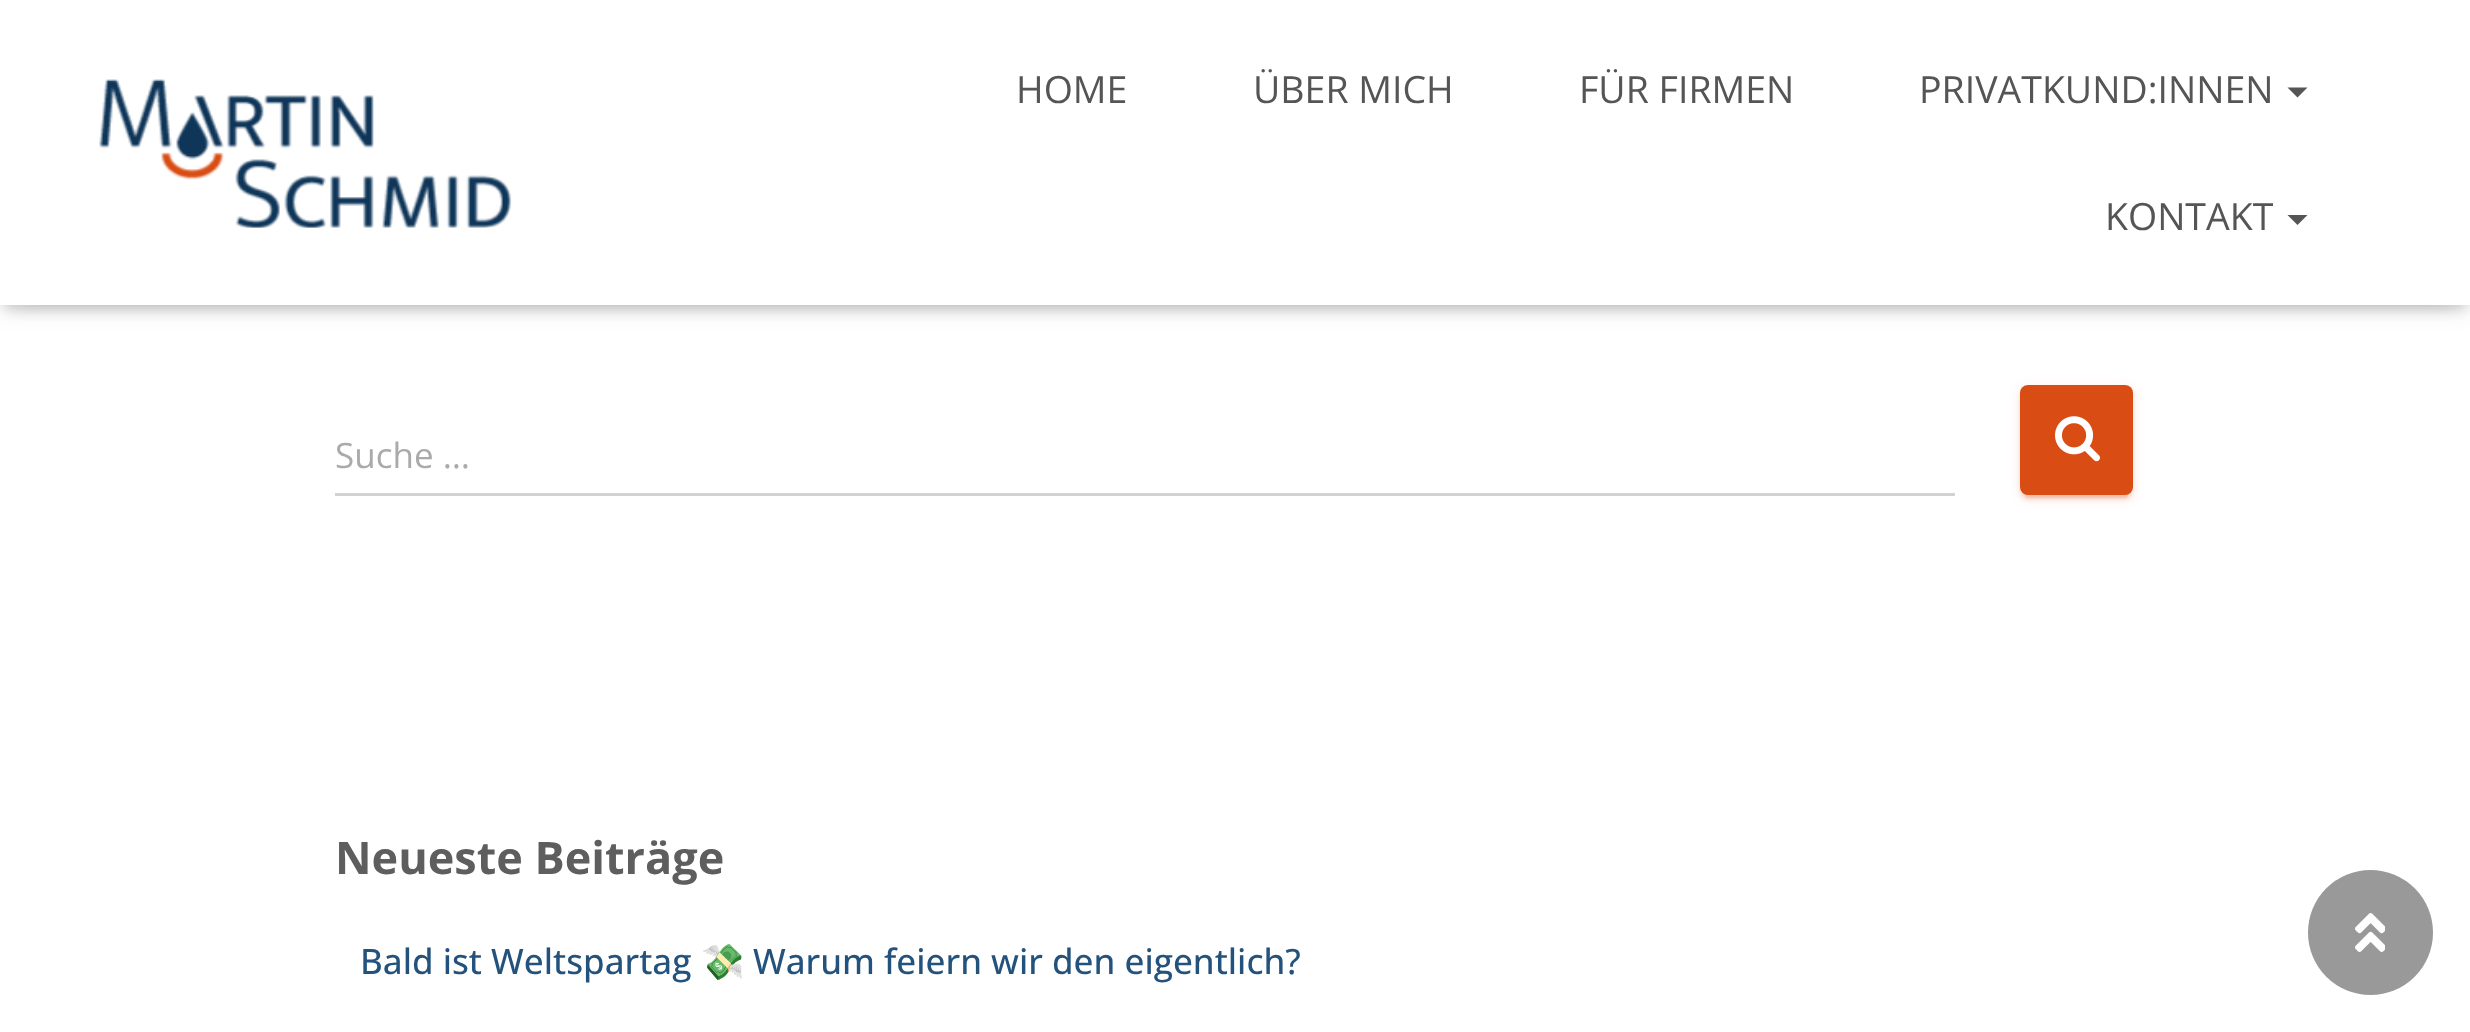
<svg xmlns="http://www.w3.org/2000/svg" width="2470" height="1032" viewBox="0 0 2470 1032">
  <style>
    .t1 { font: 37.5px Open Sans; fill: #555; }
    .t2 { font: 35px Open Sans; fill: #aaa; }
    .t3 { font: bold 45px Open Sans; fill: #5e5e5e; }
    .t4 { font: 500 35px Open Sans; fill: #23527c; }
    .t5 { font: 35px Noto Color Emoji; fill: #23527c; }
  </style>
  <rect width="100%" height="100%" fill="#fff"/>
  <rect x="5" y="15" width="2460" height="295" fill="#0000001a" filter="blur(6px)"/>
  <rect x="0" y="3" width="2470" height="305" fill="#0000001f" filter="blur(12.5px)"/>
  <rect x="15" y="18" width="2440" height="275" fill="#0000006b" filter="blur(12.5px)"/>
  <rect x="0" y="0" width="2470" height="305" fill="#fff"/>
  <image x="99" y="79" width="413" height="149" href="images/1.png"/>
  <text x="1016" y="103" class="t1">HOME</text>
  <text x="1253" y="103" class="t1">ÜBER MICH</text>
  <text x="1579" y="103" class="t1">FÜR FIRMEN</text>
  <text x="1919" y="103" class="t1">PRIVATKUND:INNEN</text>
  <path d="M2287.5 87.5H2307.5L2297.5 97.5Z" fill="#555"/>
  <text x="2105" y="230" class="t1">KONTAKT</text>
  <path d="M2287.5 215H2307.5L2297.5 225Z" fill="#555"/>
  <text x="335" y="468" class="t2">Suche …</text>
  <rect x="335" y="493" width="1620" height="3" fill="#d2d2d2"/>
  <rect x="2020" y="388" width="113" height="110" rx="8" fill="#d94d151f" filter="blur(6px)"/>
  <rect x="2025" y="398" width="103" height="100" rx="2.5" fill="#d94d1533" filter="blur(1px)"/>
  <rect x="2020" y="390" width="113" height="110" rx="8" fill="#d94d1524" filter="blur(2.5px)"/>
  <rect x="2020" y="385" width="113" height="110" rx="8" fill="#d94d15"/>
  <image x="2055" y="416" width="45" height="46" href="images/2.png"/>
  <text x="335" y="874" class="t3">Neueste Beiträge</text>
  <text x="360" y="974" class="t4">Bald ist Weltspartag</text>
  <text x="701" y="974" class="t5">💸</text>
  <text x="753" y="974" class="t4">Warum feiern wir den eigentlich?</text>
  <circle cx="2370.5" cy="932.5" r="62.5" fill="#999"/>
  <image x="2355" y="913" width="30" height="39" href="images/3.png"/>
</svg>
